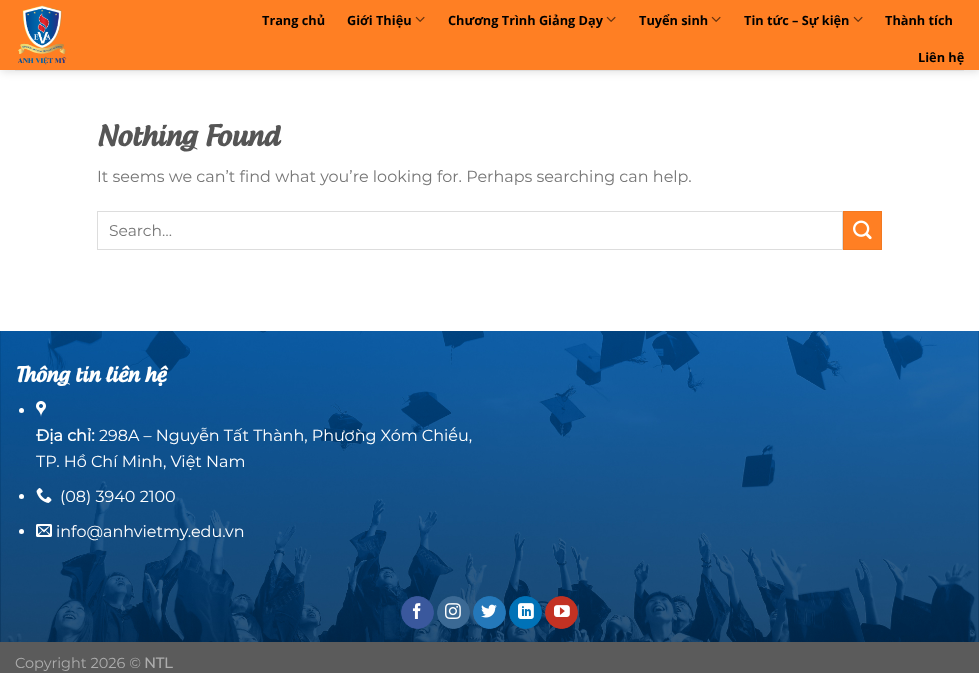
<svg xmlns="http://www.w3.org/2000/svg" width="979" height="673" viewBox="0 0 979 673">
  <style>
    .t1 { font: bold 12.75px Open Sans; fill: #000; }
    .t2 { font: bold 27.25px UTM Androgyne; fill: #555; }
    .t3 { font: 100 16px Montserrat; fill: #777; }
    .t4 { font: 100 15.5px Montserrat; fill: #777; }
    .t5 { font: bold 20px UTM Androgyne; fill: #fff; }
    .t6 { font: bold 16px Montserrat; fill: #fff; }
    .t7 { font: 100 16px Montserrat; fill: #fff; }
    .t8 { font: 100 14.5px Montserrat; fill: #adadad; }
    .t9 { font: bold 14.5px Montserrat; fill: #adadad; }
  </style>
  <rect width="100%" height="100%" fill="#fff"/>
  <rect x="1" y="1" width="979" height="70" fill="#00000026" filter="blur(5px)"/>
  <rect x="0" y="0" width="979" height="70" fill="#ff7f23"/>
  <image x="18" y="5" width="49" height="60" href="images/1.png"/>
  <text x="262" y="25" class="t1">Trang chủ</text>
  <text x="347" y="25" class="t1">Giới Thiệu</text>
  <image x="415" y="16" width="10" height="6" href="images/2.png"/>
  <text x="448" y="25" class="t1">Chương Trình Giảng Dạy</text>
  <image x="606" y="16" width="10" height="6" href="images/2.png"/>
  <text x="639" y="25" class="t1">Tuyển sinh</text>
  <image x="711" y="16" width="10" height="6" href="images/2.png"/>
  <text x="744" y="25" class="t1">Tin tức – Sự kiện</text>
  <image x="853" y="16" width="10" height="6" href="images/2.png"/>
  <text x="885" y="25" class="t1">Thành tích</text>
  <text x="918" y="62" class="t1">Liên hệ</text>
  <rect x="15" y="70" width="949" height="1" fill="#7777771a"/>
  <text x="97" y="146" class="t2">Nothing Found</text>
  <text x="97" y="182" class="t3">It seems we can’t find what you’re looking for. Perhaps searching can help.</text>
  <rect x="97.5" y="211.5" width="745" height="38" fill="none" stroke="#ddd"/>
  <text x="109" y="236" class="t4">Search…</text>
  <rect x="843.5" y="211.5" width="38" height="38" fill="#ff7f23" stroke="#f27921"/>
  <image x="853" y="220" width="19" height="20" href="images/3.png"/>
  <image x="0" y="331" width="979" height="311" href="images/4.png"/>
  <text x="15" y="382" class="t5">Thông tin liên hệ</text>
  <circle cx="21.5" cy="410.5" r="2.5" fill="#fff"/>
  <image x="36" y="401" width="10" height="16" href="images/5.png"/>
  <text x="36" y="441" class="t6">Địa chỉ:</text>
  <text x="99" y="441" class="t7">298A – Nguyễn Tất Thành, Phường Xóm Chiếu,</text>
  <text x="36" y="467" class="t7">TP. Hồ Chí Minh, Việt Nam</text>
  <circle cx="21.5" cy="496.5" r="2.5" fill="#fff"/>
  <image x="36" y="488" width="16" height="15" href="images/6.png"/>
  <text x="60" y="502" class="t7">(08) 3940 2100</text>
  <circle cx="21.5" cy="531.5" r="2.5" fill="#fff"/>
  <image x="36" y="524" width="16" height="13" href="images/7.png"/>
  <text x="56" y="537" class="t7">info@anhvietmy.edu.vn</text>
  <circle cx="417.5" cy="612.5" r="16" fill="#3a589d" stroke="#3a589d"/>
  <image x="412" y="603" width="9" height="16" href="images/8.png"/>
  <circle cx="453.5" cy="612.5" r="16" fill="#3b6994" stroke="#3b6994"/>
  <image x="445" y="603" width="16" height="16" href="images/9.png"/>
  <circle cx="489.5" cy="612.5" r="16" fill="#2478ba" stroke="#2478ba"/>
  <image x="481" y="604" width="16" height="14" href="images/10.png"/>
  <circle cx="525.5" cy="612.5" r="16" fill="#0072b7" stroke="#0072b7"/>
  <image x="518" y="603" width="16" height="16" href="images/11.png"/>
  <circle cx="561.5" cy="612.5" r="16" fill="#c33223" stroke="#c33223"/>
  <image x="554" y="605" width="16" height="12" href="images/12.png"/>
  <rect x="0" y="642" width="979" height="31" fill="#5b5b5b"/>
  <text x="15" y="668" class="t8">Copyright 2026 ©</text>
  <text x="144" y="668" class="t9">NTL</text>
</svg>
